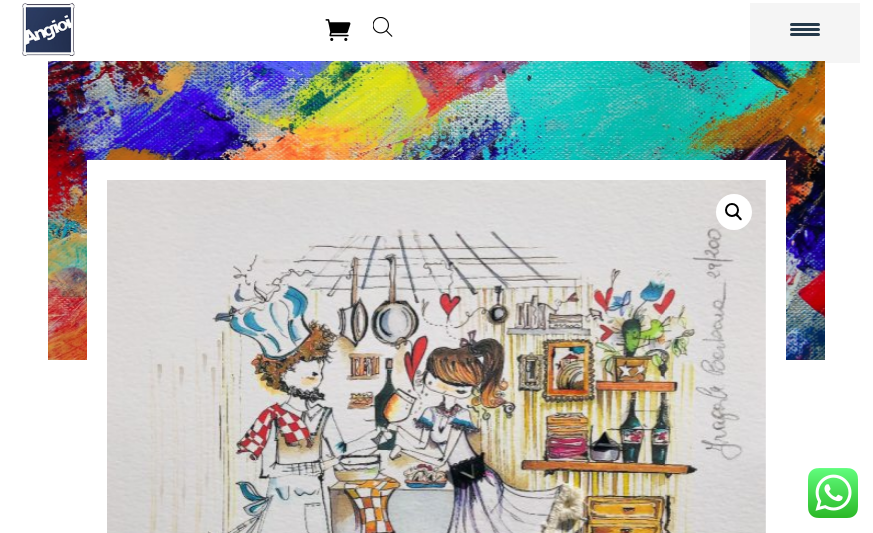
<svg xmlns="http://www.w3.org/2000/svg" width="873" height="533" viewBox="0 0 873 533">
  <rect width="100%" height="100%" fill="#fff"/>
  <image x="22" y="2" width="53" height="54" href="images/1.png"/>
  <image x="325" y="19" width="26" height="22" href="images/2.png"/>
  <image x="373" y="17" width="20" height="20" href="images/3.png"/>
  <image x="48" y="61" width="777" height="299" href="images/4.png"/>
  <rect x="750" y="3" width="110" height="60" fill="#0000000a"/>
  <rect x="790" y="23" width="30" height="3" rx="1.5" fill="#24394a"/>
  <rect x="790" y="28" width="30" height="3" rx="1.5" fill="#24394a"/>
  <rect x="790" y="33" width="30" height="3" rx="1.5" fill="#24394a"/>
  <rect x="87" y="160" width="699" height="200" fill="#fff"/>
  <image x="107" y="180" width="659" height="353" href="images/5.png"/>
  <circle cx="734" cy="212" r="18" fill="#fff"/>
  <circle cx="732" cy="210" r="6" fill="none" stroke="#000" stroke-width="2"/>
  <path d="M736 214C737 213 739 215.5 739.5 216.5C740 217 742.5 218.5 741.5 220C740.5 221 738.5 218.5 738 217.5C737.5 217 734.5 215.5 736 214Z" fill="#000"/>
  <image x="808" y="468" width="50" height="50" href="images/6.png"/>
</svg>
